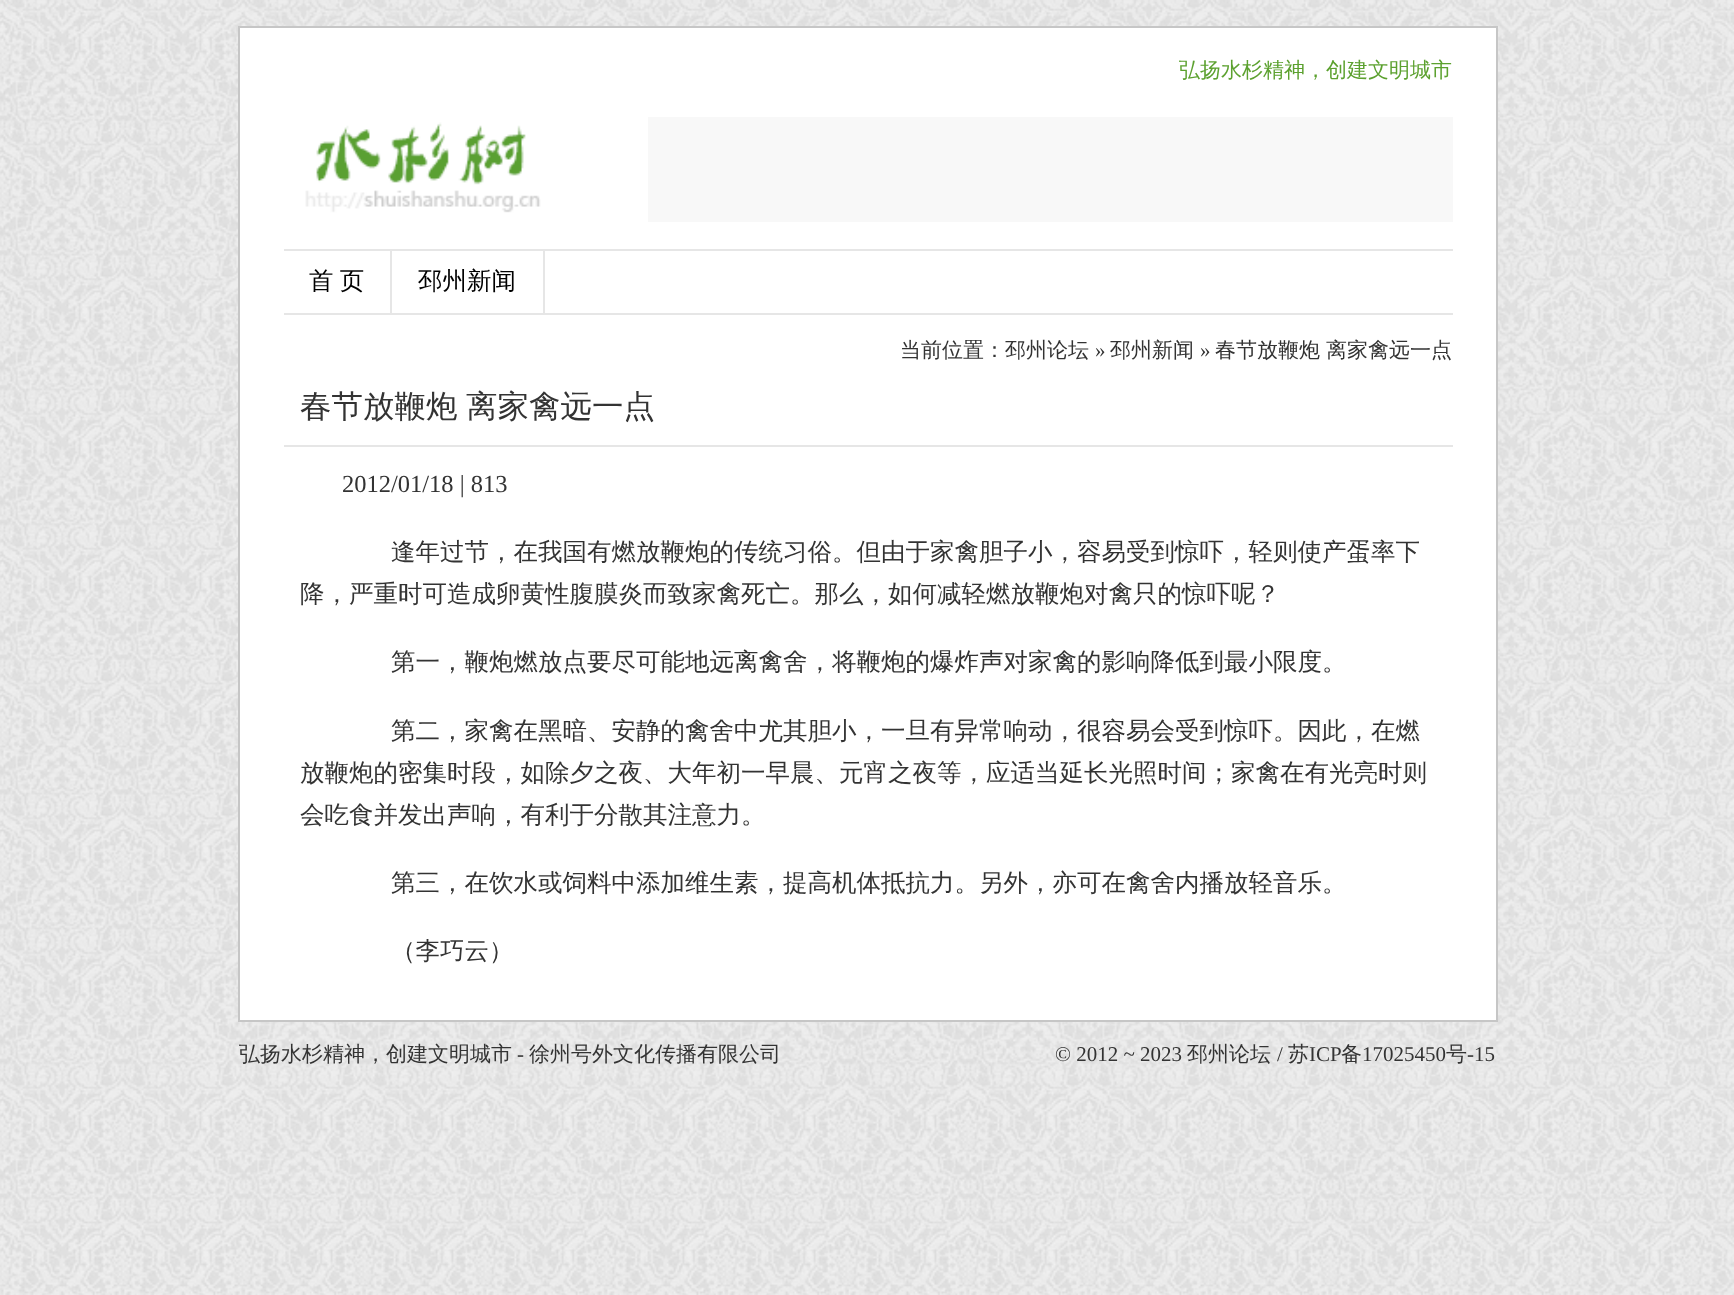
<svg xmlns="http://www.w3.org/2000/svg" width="1734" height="1295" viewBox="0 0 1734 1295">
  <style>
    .t1 { font: 500 21px WenQuanYi Zen Hei; fill: #5ca12f; }
    .t2 { font: 500 24.5px WenQuanYi Zen Hei; fill: #000; }
    .t3 { font: 500 21px WenQuanYi Zen Hei; fill: #333; }
    .t4 { font: 21px Liberation Serif; fill: #333; }
    .t5 { font: 500 31.5px WenQuanYi Zen Hei; fill: #333; }
    .t6 { font: 24.5px Liberation Serif; fill: #333; }
    .t7 { font: 500 24.5px WenQuanYi Zen Hei; fill: #333; }
  </style>
  <rect width="100%" height="100%" fill="#fff"/>
  <image x="0" y="0" width="1734" height="1295" href="images/1.png"/>
  <rect x="239" y="27" width="1258" height="994" fill="#fff" stroke="#c6c6c6" stroke-width="2"/>
  <text x="1179" y="77" class="t1">弘扬水杉精神，创建文明城市</text>
  <image x="305" y="122" width="236" height="91" href="images/2.png"/>
  <rect x="648" y="117" width="805" height="105" fill="#f8f8f8"/>
  <rect x="284" y="249" width="1169" height="2" fill="#e6e6e6"/>
  <rect x="284" y="313" width="1169" height="2" fill="#e6e6e6"/>
  <rect x="390" y="250" width="2" height="63" fill="#e6e6e6"/>
  <text x="309" y="289" word-spacing="-1" class="t2">首 页</text>
  <rect x="543" y="250" width="2" height="63" fill="#e6e6e6"/>
  <text x="418" y="289" class="t2">邳州新闻</text>
  <text x="900" y="357" class="t3">当前位置：邳州论坛</text>
  <text x="1095" y="357" class="t4">»</text>
  <text x="1110" y="357" class="t3">邳州新闻</text>
  <text x="1200" y="357" class="t4">»</text>
  <text x="1215" y="357" class="t3">春节放鞭炮</text>
  <text x="1326" y="357" class="t3">离家禽远一点</text>
  <rect x="284" y="445" width="1169" height="2" fill="#e6e6e6"/>
  <text x="300" y="417" class="t5">春节放鞭炮</text>
  <text x="466" y="417" class="t5">离家禽远一点</text>
  <text x="342" y="492" class="t6">2012/01/18 | 813</text>
  <text x="391" y="560" class="t7">逢年过节，在我国有燃放鞭炮的传统习俗。但由于家禽胆子小，容易受到惊吓，轻则使产蛋率下</text>
  <text x="300" y="602" class="t7">降，严重时可造成卵黄性腹膜炎而致家禽死亡。那么，如何减轻燃放鞭炮对禽只的惊吓呢？</text>
  <text x="391" y="670" class="t7">第一，鞭炮燃放点要尽可能地远离禽舍，将鞭炮的爆炸声对家禽的影响降低到最小限度。</text>
  <text x="391" y="739" class="t7">第二，家禽在黑暗、安静的禽舍中尤其胆小，一旦有异常响动，很容易会受到惊吓。因此，在燃</text>
  <text x="300" y="781" class="t7">放鞭炮的密集时段，如除夕之夜、大年初一早晨、元宵之夜等，应适当延长光照时间；家禽在有光亮时则</text>
  <text x="300" y="823" class="t7">会吃食并发出声响，有利于分散其注意力。</text>
  <text x="391" y="891" class="t7">第三，在饮水或饲料中添加维生素，提高机体抵抗力。另外，亦可在禽舍内播放轻音乐。</text>
  <text x="391" y="959" class="t7">（李巧云）</text>
  <text x="239" y="1061" class="t3">弘扬水杉精神，创建文明城市</text>
  <text x="517" y="1061" class="t4">-</text>
  <text x="529" y="1061" class="t3">徐州号外文化传播有限公司</text>
  <text x="1055" y="1061" class="t4">© 2012 ~ 2023</text>
  <text x="1187" y="1061" class="t3">邳州论坛</text>
  <text x="1277" y="1061" class="t4">/</text>
  <text x="1288" y="1061" class="t3">苏</text>
  <text x="1309" y="1061" class="t4">ICP</text>
  <text x="1341" y="1061" class="t3">备</text>
  <text x="1362" y="1061" class="t4">17025450</text>
  <text x="1446" y="1061" class="t3">号</text>
  <text x="1467" y="1061" class="t4">-15</text>
</svg>
